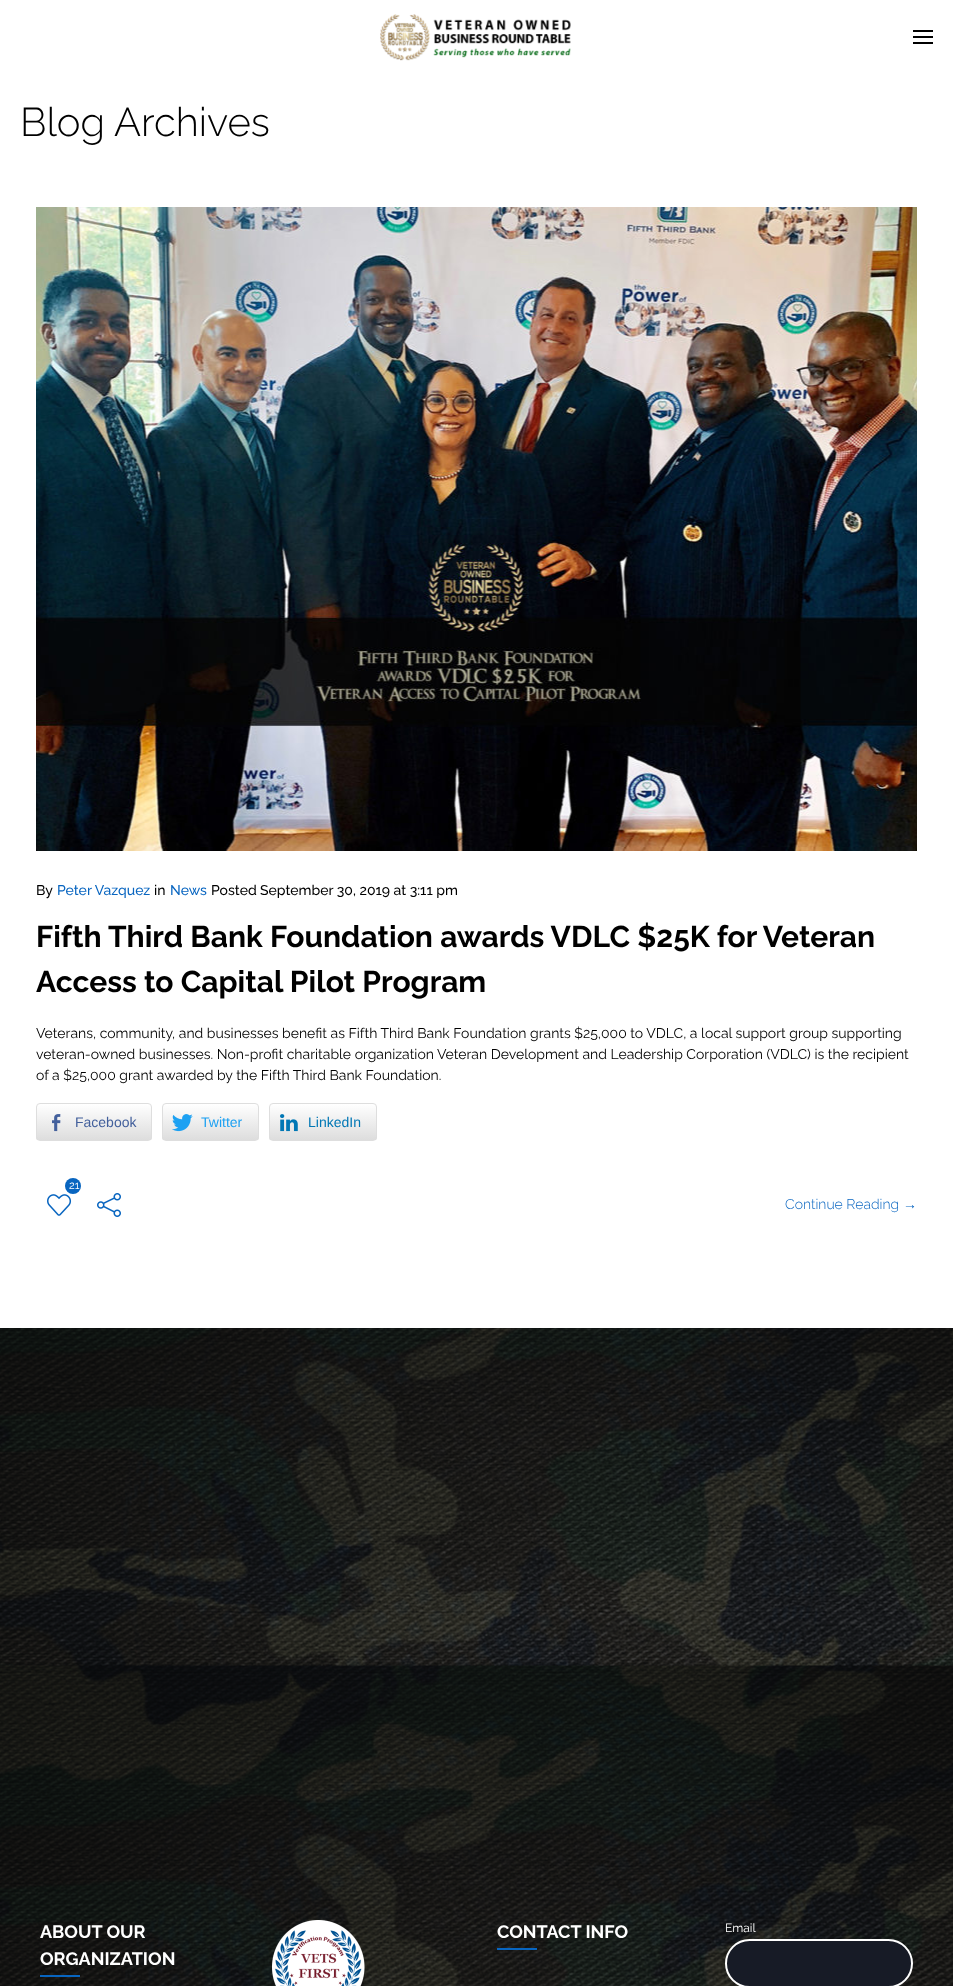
<svg xmlns="http://www.w3.org/2000/svg" width="953" height="1986" viewBox="0 0 953 1986">
  <style>
    .t1 { font: 300 40px Raleway; fill: #000; }
    .t2 { font: 500 14px Raleway; fill: #000; }
    .t3 { font: 500 14px Raleway; fill: #0865c0; }
    .t4 { font: bold 30px Raleway; fill: #000; }
    .t5 { font: 14px Raleway; fill: #000; }
    .t6 { font: 14px Liberation Sans; fill: #43609c; }
    .t7 { font: 14px Liberation Sans; fill: #1da1f2; }
    .t8 { font: 14px Liberation Sans; fill: #0077b5; }
    .t9 { font: 11px Raleway; fill: #fff; }
    .t10 { font: 300 14px Raleway; fill: #0865c0; }
    .t11 { font: 14px Liberation Serif; fill: #0865c0; }
    .t12 { font: bold 18px Raleway; fill: #fff; }
    .t13 { font: 12px Raleway; fill: #fff; }
  </style>
  <defs>
    <clipPath id="clip1"><rect x="36" y="1103" width="116" height="38" rx="4"/></clipPath>
    <linearGradient id="g1" gradientUnits="userSpaceOnUse" x1="94" y1="1104" x2="94" y2="1140"><stop offset="0" stop-color="#fff"/><stop offset="1" stop-color="#ddd"/></linearGradient>
    <clipPath id="clip2"><rect x="162" y="1103" width="97" height="38" rx="4"/></clipPath>
    <linearGradient id="g2" gradientUnits="userSpaceOnUse" x1="211" y1="1104" x2="211" y2="1140"><stop offset="0" stop-color="#fff"/><stop offset="1" stop-color="#ddd"/></linearGradient>
    <clipPath id="clip3"><rect x="269" y="1103" width="108" height="38" rx="4"/></clipPath>
    <linearGradient id="g3" gradientUnits="userSpaceOnUse" x1="323" y1="1104" x2="323" y2="1140"><stop offset="0" stop-color="#fff"/><stop offset="1" stop-color="#ddd"/></linearGradient>
  </defs>
  <rect width="100%" height="100%" fill="#fff"/>
  <image x="380" y="14" width="191" height="47" href="images/1.png"/>
  <rect x="913" y="30" width="20" height="2" fill="#000"/>
  <rect x="913" y="36" width="20" height="2" fill="#000"/>
  <rect x="913" y="42" width="20" height="2" fill="#000"/>
  <text x="20" y="136" class="t1">Blog Archives</text>
  <image x="36" y="207" width="881" height="644" href="images/2.png"/>
  <text x="36" y="895" class="t2">By</text>
  <text x="57" y="895" class="t3">Peter Vazquez</text>
  <text x="154" y="895" class="t2">in</text>
  <text x="170" y="895" class="t3">News</text>
  <text x="211" y="895" class="t2">Posted</text>
  <text x="260" y="895" class="t2">September 30, 2019 at 3:11 pm</text>
  <text x="36" y="947" class="t4">Fifth Third Bank Foundation awards VDLC $25K for Veteran</text>
  <text x="36" y="992" class="t4">Access to Capital Pilot Program</text>
  <text x="36" y="1038" class="t5">Veterans, community, and businesses benefit as Fifth Third Bank Foundation grants $25,000 to VDLC, a local support group supporting</text>
  <text x="36" y="1059" class="t5">veteran-owned businesses. Non-profit charitable organization Veteran Development and Leadership Corporation (VDLC) is the recipient</text>
  <text x="36" y="1080" class="t5">of a $25,000 grant awarded by the Fifth Third Bank Foundation.</text>
  <g clip-path="url(#clip1)">
    <rect x="36" y="1104" width="116" height="36" fill="url(#g1)"/>
  </g>
  <rect x="36.5" y="1103.5" width="115" height="37" rx="3.5" fill="none" stroke="#dedede"/>
  <image x="52" y="1114" width="9" height="18" href="images/3.png"/>
  <text x="75" y="1127" class="t6">Facebook</text>
  <g clip-path="url(#clip2)">
    <rect x="162" y="1104" width="97" height="36" fill="url(#g2)"/>
  </g>
  <rect x="162.5" y="1103.5" width="96" height="37" rx="3.5" fill="none" stroke="#dedede"/>
  <image x="172" y="1114" width="21" height="18" href="images/4.png"/>
  <text x="201" y="1127" class="t7">Twitter</text>
  <g clip-path="url(#clip3)">
    <rect x="269" y="1104" width="108" height="36" fill="url(#g3)"/>
  </g>
  <rect x="269.5" y="1103.5" width="107" height="37" rx="3.5" fill="none" stroke="#dedede"/>
  <image x="280" y="1114" width="18" height="18" href="images/5.png"/>
  <text x="308" y="1127" class="t8">LinkedIn</text>
  <circle cx="73" cy="1186" r="8" fill="#0865c0"/>
  <text x="69" y="1189" class="t9">21</text>
  <image x="47" y="1194" width="25" height="22" href="images/6.png"/>
  <image x="97" y="1193" width="24" height="24" href="images/7.png"/>
  <text x="785" y="1209" class="t10">Continue Reading</text>
  <text x="903" y="1209" class="t11">→</text>
  <image x="0" y="1328" width="953" height="658" href="images/8.png"/>
  <text x="40" y="1938" class="t12">ABOUT OUR</text>
  <text x="40" y="1965" class="t12">ORGANIZATION</text>
  <rect x="40" y="1975" width="40" height="2" fill="#0865c0"/>
  <image x="272" y="1920" width="93" height="66" href="images/9.png"/>
  <text x="497" y="1938" class="t12">CONTACT INFO</text>
  <rect x="497" y="1948" width="40" height="2" fill="#0865c0"/>
  <text x="725" y="1932" class="t13">Email</text>
  <rect x="726" y="1940" width="186" height="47" rx="23.5" fill="#171b26" stroke="#fff" stroke-width="2"/>
</svg>
